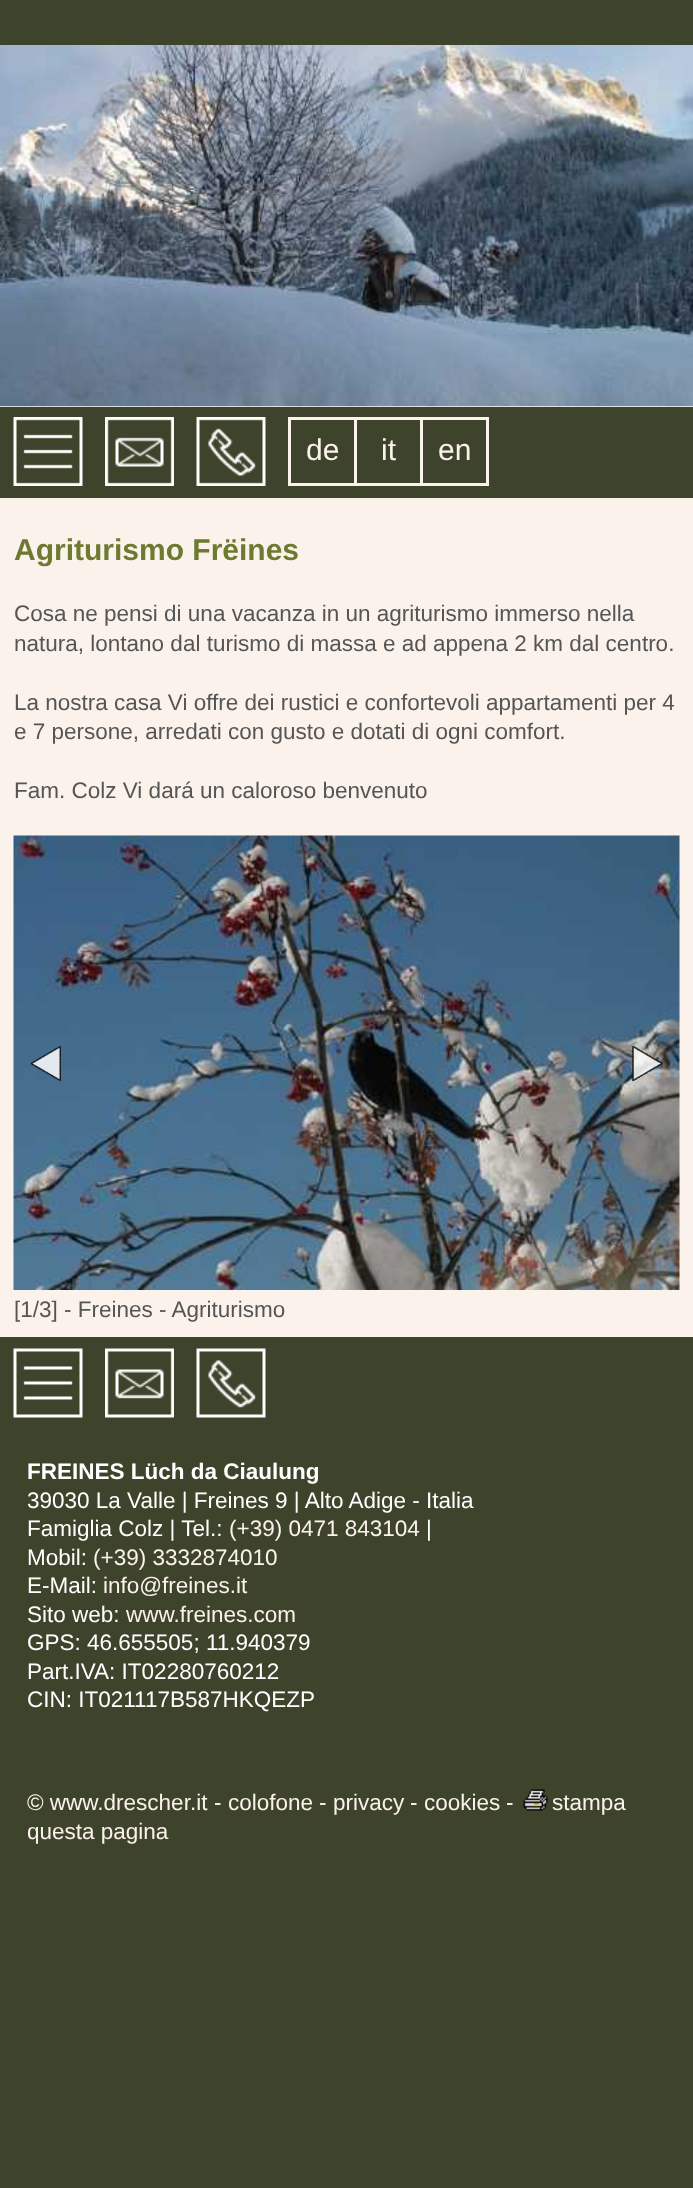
<svg xmlns="http://www.w3.org/2000/svg" width="693" height="2188" viewBox="0 0 693 2188">
  <style>
    .t1 { font: 30px Liberation Sans; fill: #faf2eb; }
    .t2 { font: bold 30px Liberation Sans; fill: #6d7b30; }
    .t3 { font: 22.5px Liberation Sans; fill: #555; }
    .t4 { font: bold 22.5px Liberation Sans; fill: #fff; }
    .t5 { font: 22.5px Liberation Sans; fill: #fff; }
    .t6 { font: 22.5px Liberation Sans; fill: #faf2eb; }
  </style>
  <rect width="100%" height="100%" fill="#3e432b"/>
  <rect x="0" y="406" width="693" height="1" fill="#fff"/>
  <image x="0" y="45" width="693" height="362" href="images/1.png"/>
  <image x="13" y="417" width="70" height="69" href="images/2.png"/>
  <image x="105" y="417" width="69" height="69" href="images/3.png"/>
  <image x="196" y="417" width="70" height="69" href="images/4.png"/>
  <rect x="289.5" y="418.5" width="198" height="66" fill="none" stroke="#faf2eb" stroke-width="3"/>
  <text x="306" y="460" class="t1">de</text>
  <rect x="354" y="420" width="3" height="63" fill="#faf2eb"/>
  <text x="381" y="460" class="t1">it</text>
  <rect x="420" y="420" width="3" height="63" fill="#faf2eb"/>
  <text x="438" y="460" class="t1">en</text>
  <rect x="0" y="498" width="693" height="839" fill="#faf2eb"/>
  <text x="14" y="560" class="t2">Agriturismo Frëines</text>
  <text x="14" y="621" class="t3">Cosa ne pensi di una vacanza in un agriturismo immerso nella</text>
  <text x="14" y="651" class="t3">natura, lontano dal turismo di massa e ad appena 2 km dal centro.</text>
  <text x="14" y="710" class="t3">La nostra casa Vi offre dei rustici e confortevoli appartamenti per 4</text>
  <text x="14" y="739" class="t3">e 7 persone, arredati con gusto e dotati di ogni comfort.</text>
  <text x="14" y="798" class="t3">Fam. Colz Vi dará un caloroso benvenuto</text>
  <image x="13" y="835" width="667" height="455" href="images/5.png"/>
  <image x="30" y="1046" width="31" height="35" href="images/6.png"/>
  <image x="632" y="1046" width="31" height="35" href="images/7.png"/>
  <text x="14" y="1317" class="t3">[1/3] - Freines - Agriturismo</text>
  <image x="13" y="1348" width="70" height="70" href="images/8.png"/>
  <image x="105" y="1348" width="69" height="70" href="images/9.png"/>
  <image x="196" y="1348" width="70" height="70" href="images/10.png"/>
  <text x="27" y="1479" class="t4">FREINES Lüch da Ciaulung</text>
  <text x="27" y="1508" class="t5">39030 La Valle | Freines 9 | Alto Adige - Italia</text>
  <text x="27" y="1536" class="t5">Famiglia Colz | Tel.:</text>
  <text x="229" y="1536" class="t6">(+39) 0471 843104</text>
  <text x="426" y="1536" class="t5">|</text>
  <text x="27" y="1565" class="t5">Mobil:</text>
  <text x="93" y="1565" class="t6">(+39) 3332874010</text>
  <text x="27" y="1593" class="t5">E-Mail:</text>
  <text x="103" y="1593" class="t6">info@freines.it</text>
  <text x="27" y="1622" class="t5">Sito web:</text>
  <text x="126" y="1622" class="t6">www.freines.com</text>
  <text x="27" y="1650" class="t5">GPS: 46.655505; 11.940379</text>
  <text x="27" y="1679" class="t5">Part.IVA: IT02280760212</text>
  <text x="27" y="1707" class="t5">CIN: IT021117B587HKQEZP</text>
  <text x="27" y="1810" class="t6">© www.drescher.it</text>
  <text x="214" y="1810" class="t5">-</text>
  <text x="228" y="1810" class="t6">colofone</text>
  <text x="319" y="1810" class="t5">-</text>
  <text x="333" y="1810" class="t6">privacy</text>
  <text x="410" y="1810" class="t5">-</text>
  <text x="424" y="1810" class="t6">cookies</text>
  <text x="506" y="1810" class="t5">-</text>
  <image x="523" y="1789" width="25" height="22" href="images/11.png"/>
  <text x="552" y="1810" class="t6">stampa</text>
  <text x="27" y="1839" class="t6">questa pagina</text>
</svg>
